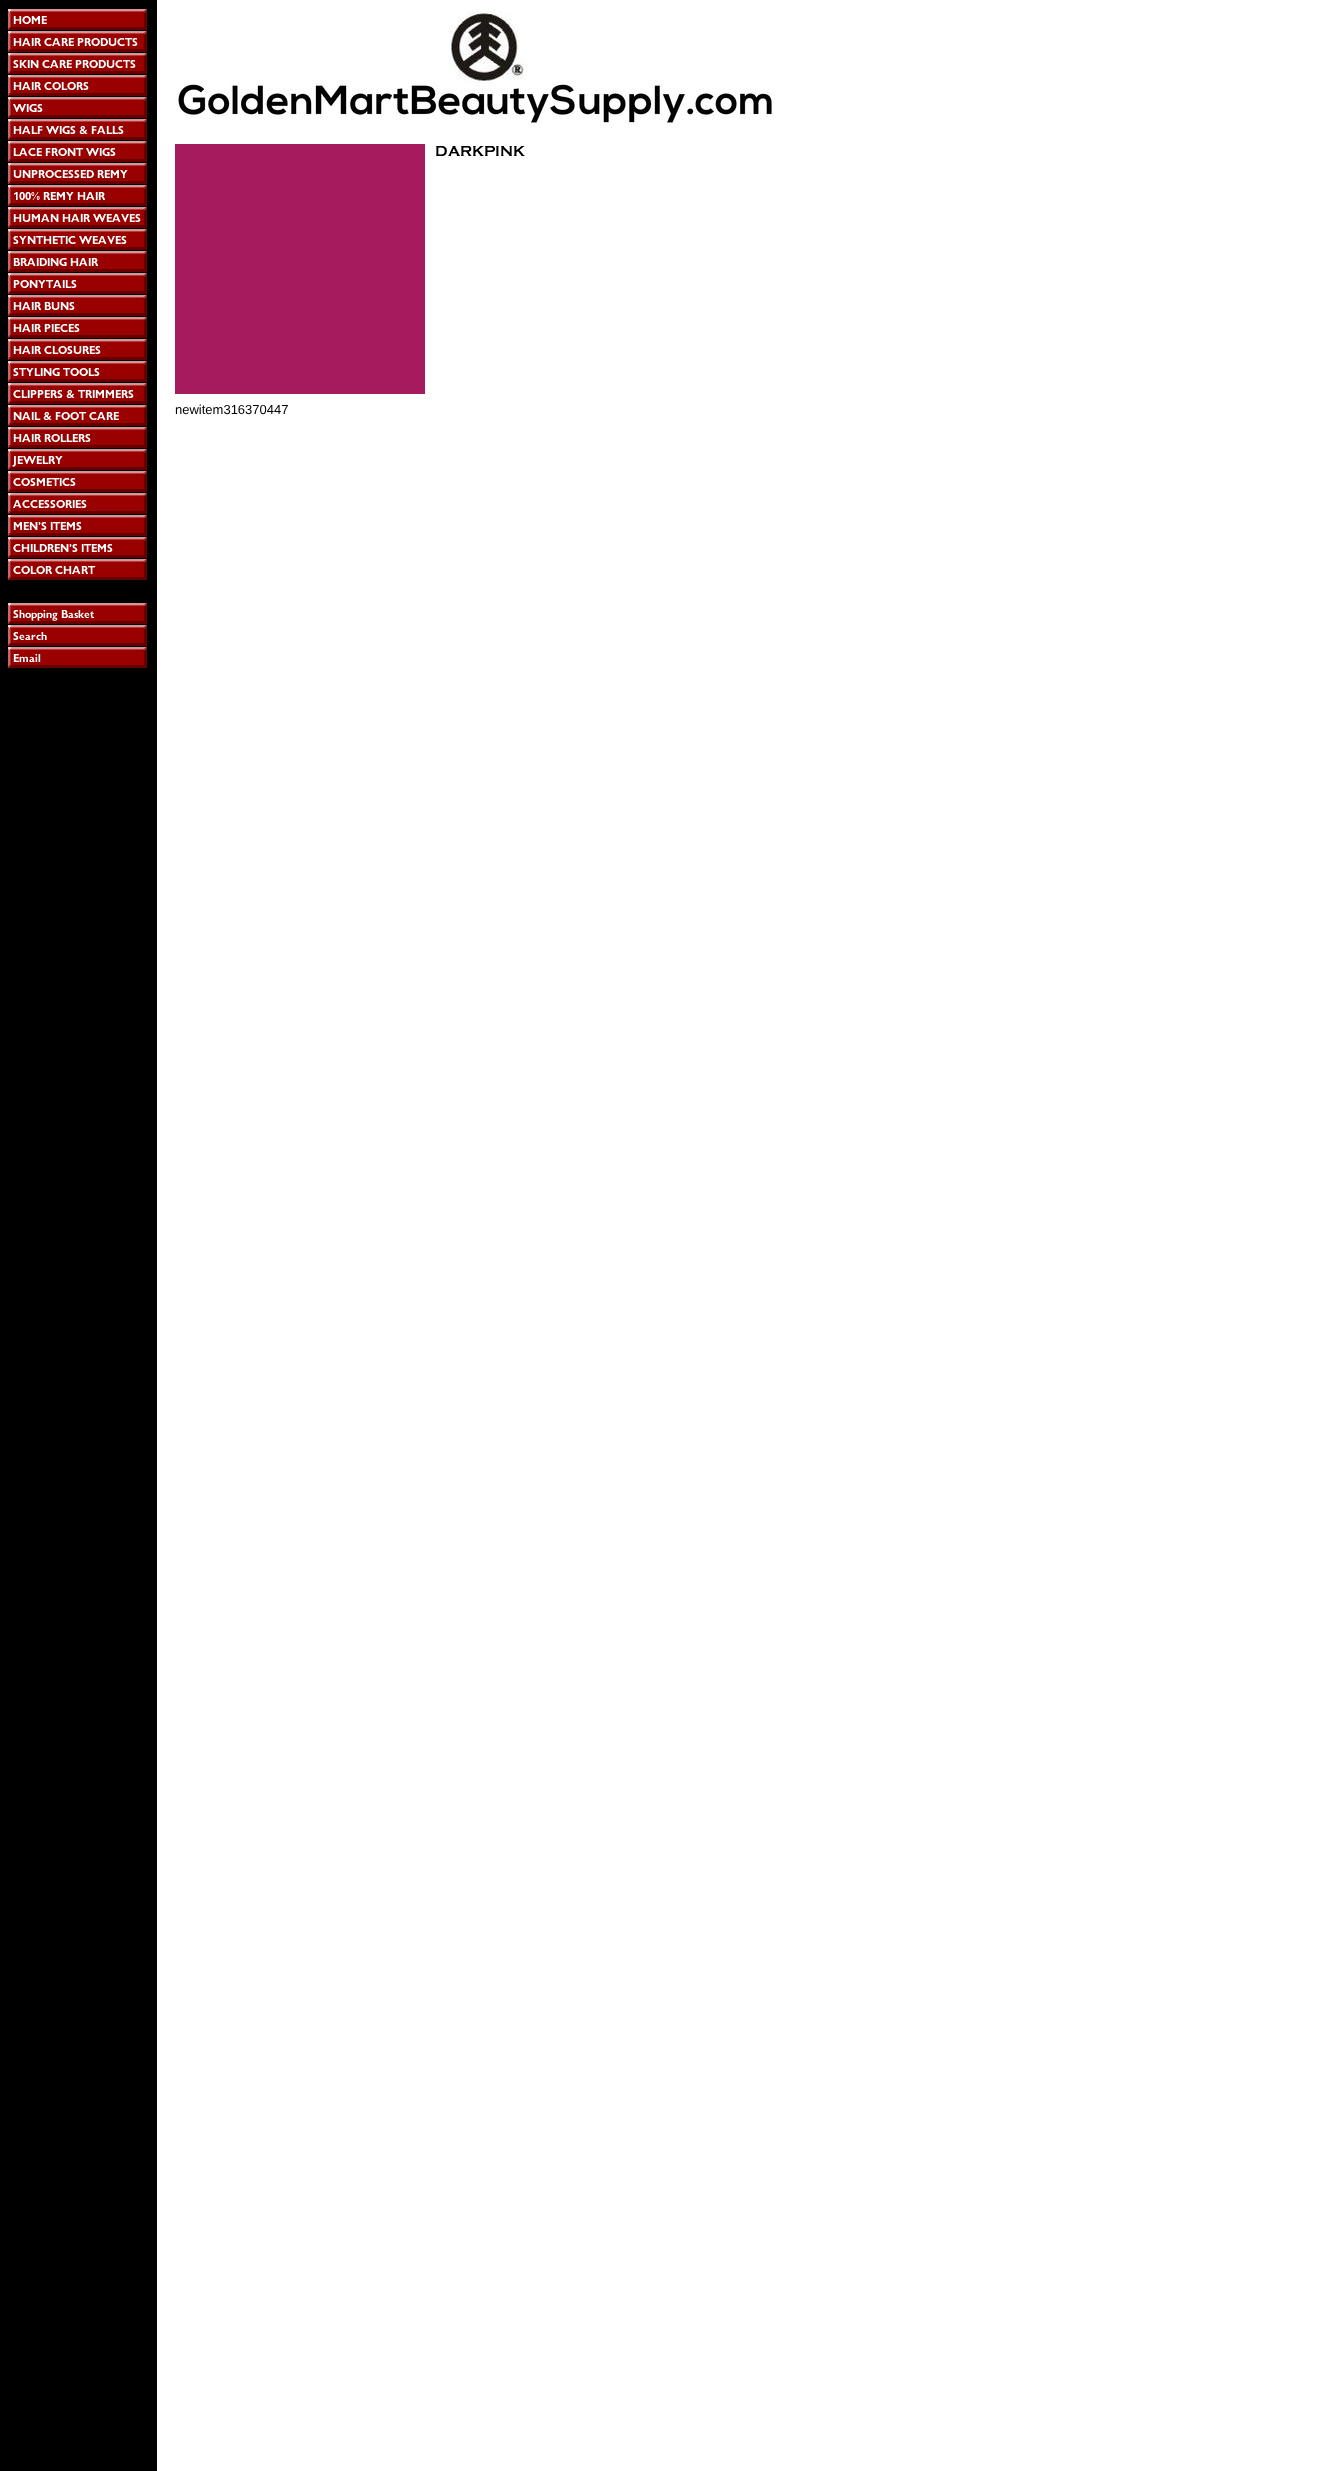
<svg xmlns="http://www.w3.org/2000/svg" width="1341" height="2471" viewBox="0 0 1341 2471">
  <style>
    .t1 { font: 13px Liberation Sans; fill: #000; }
  </style>
  <rect width="100%" height="100%" fill="#fff"/>
  <rect x="0" y="0" width="157" height="2471" fill="#000"/>
  <image x="8" y="9" width="139" height="659" href="images/1.png"/>
  <image x="176" y="8" width="599" height="118" href="images/2.png"/>
  <rect x="175" y="144" width="250" height="250" fill="#a61b5e"/>
  <image x="436" y="146" width="89" height="10" href="images/3.png"/>
  <text x="175" y="414" class="t1">newitem316370447</text>
</svg>
